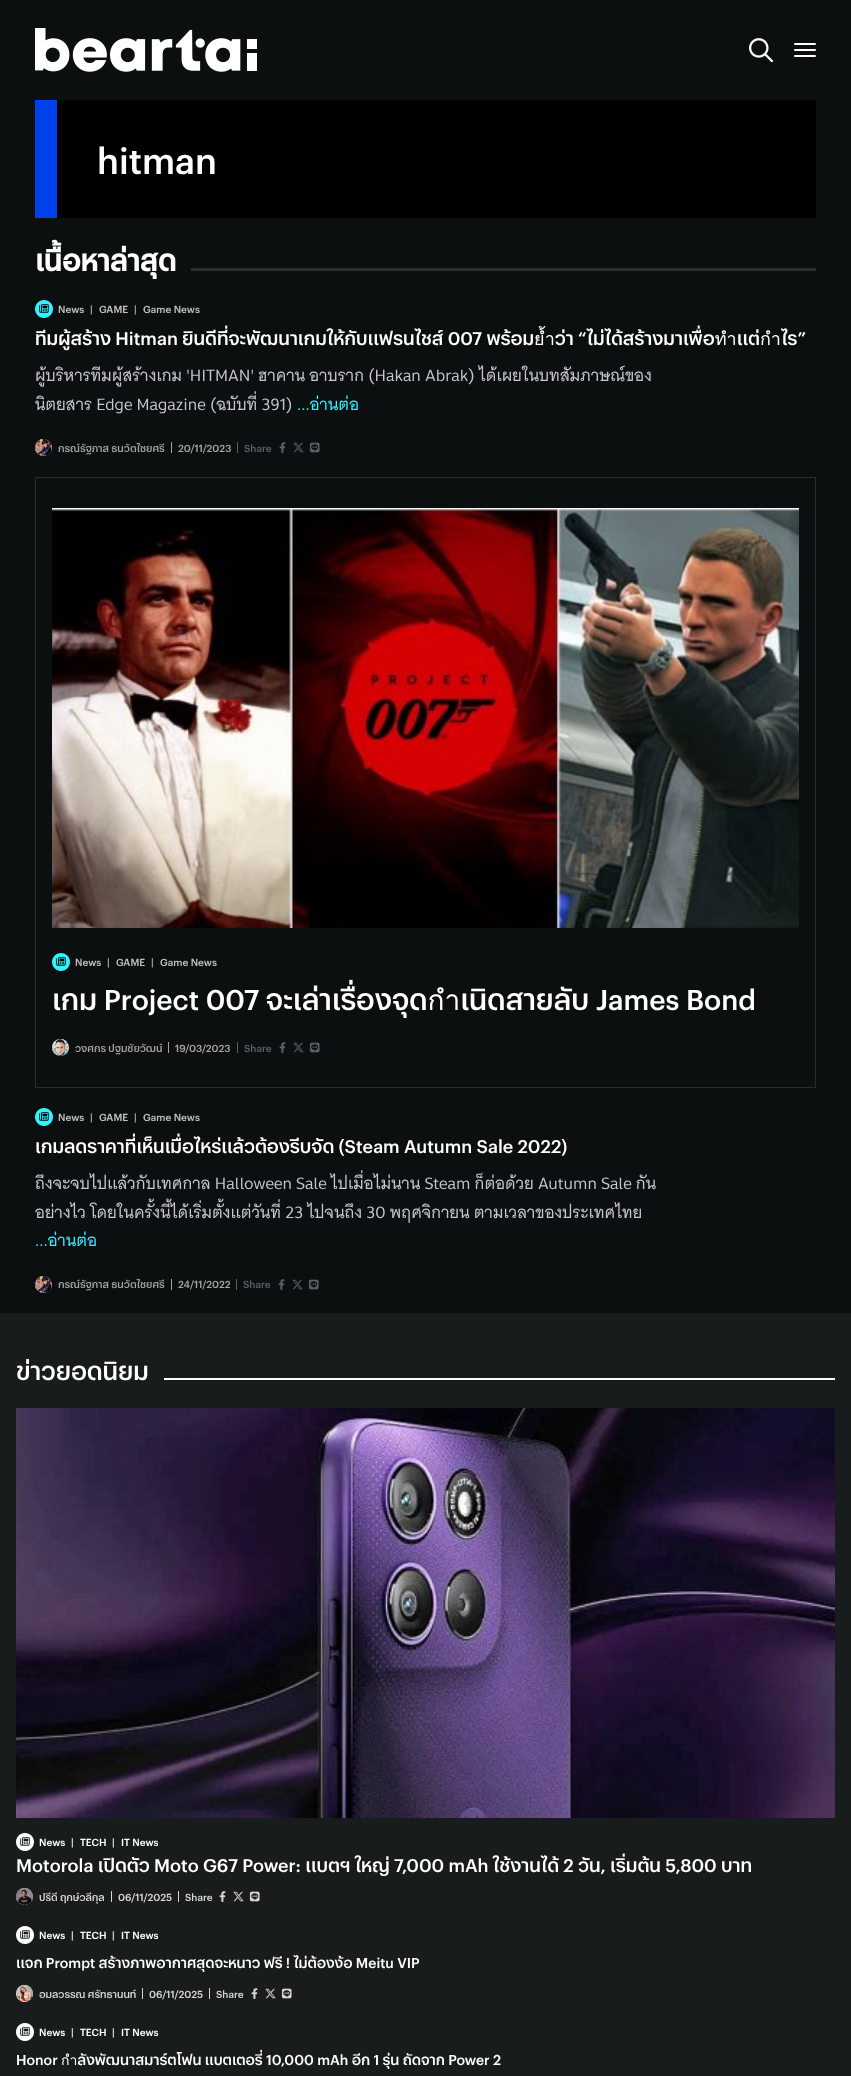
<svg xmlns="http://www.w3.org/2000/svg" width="851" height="2076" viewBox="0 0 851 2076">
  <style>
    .t1 { font: 500 36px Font; fill: #fff; }
    .t2 { font: bold 28px Font; fill: #fff; }
    .t3 { font: 500 10px Font; fill: #c2c2c2; }
    .t4 { font: 500 18px Font; fill: #fff; }
    .t5 { font: 16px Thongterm; fill: #c5c6d0; }
    .t6 { font: 16px Thongterm; fill: #2ff3ff; }
    .t7 { font: 500 10px Font; fill: #a4a4a4; }
    .t8 { font: 500 10px Font; fill: #5c5e67; }
    .t9 { font: 500 28px Font; fill: #fff; }
    .t10 { font: 500 24px Font; fill: #fff; }
    .t11 { font: 500 10px Font; fill: #fff; }
    .t12 { font: 500 10px Font; fill: #d6d6d6; }
    .t13 { font: 500 14px Font; fill: #fff; }
  </style>
  <rect width="100%" height="100%" fill="#0b0f0f"/>
  <image x="35" y="28" width="222" height="44" href="images/1.png"/>
  <image x="749" y="38" width="24" height="25" href="images/2.png"/>
  <rect x="794" y="43" width="22" height="2" rx="1" fill="#fff"/>
  <rect x="794" y="49" width="22" height="2" rx="1" fill="#fff"/>
  <rect x="794" y="55" width="22" height="2" rx="1" fill="#fff"/>
  <rect x="57" y="100" width="759" height="118" fill="#000"/>
  <rect x="35" y="100" width="22" height="118" fill="#0041ec"/>
  <text x="97" y="174" class="t1">hitman</text>
  <text x="35" y="271" class="t2">เนื้อหาล่าสุด</text>
  <rect x="191" y="268" width="625" height="3" fill="#2c2c2c"/>
  <image x="35" y="300" width="18" height="18" href="images/3.png"/>
  <text x="58" y="313" class="t3">News</text>
  <text x="90" y="313" class="t3">|</text>
  <text x="99" y="313" class="t3">GAME</text>
  <text x="134" y="313" class="t3">|</text>
  <text x="143" y="313" class="t3">Game News</text>
  <text x="35" y="345" class="t4">ทีมผู้สร้าง Hitman ยินดีที่จะพัฒนาเกมให้กับแฟรนไชส์ 007 พร้อมย้ำว่า “ไม่ได้สร้างมาเพื่อทำแต่กำไร”</text>
  <text x="35" y="381" class="t5">ผู้บริหารทีมผู้สร้างเกม 'HITMAN' ฮาคาน อาบราก (Hakan Abrak) ได้เผยในบทสัมภาษณ์ของ</text>
  <text x="35" y="410" class="t5">นิตยสาร Edge Magazine (ฉบับที่ 391)</text>
  <text x="297" y="410" class="t6">...อ่านต่อ</text>
  <circle cx="43.5" cy="447.5" r="8.5" fill="#a4a4a4"/>
  <image x="35" y="439" width="17" height="17" href="images/4.png"/>
  <text x="58" y="452" class="t7">กรณ์รัฐภาส ธนวัตไชยศรี</text>
  <rect x="171" y="442" width="1" height="11" fill="#a4a4a4"/>
  <text x="178" y="452" class="t7">20/11/2023</text>
  <rect x="237" y="442" width="1" height="11" fill="#5c5e67"/>
  <text x="244" y="452" class="t8">Share</text>
  <image x="279" y="442" width="7" height="11" href="images/5.png"/>
  <image x="293" y="442" width="11" height="11" href="images/6.png"/>
  <image x="309" y="442" width="11" height="11" href="images/7.png"/>
  <rect x="35.5" y="477.5" width="780" height="610" fill="none" stroke="#2c2c2c"/>
  <image x="52" y="508" width="747" height="420" href="images/8.png"/>
  <image x="52" y="953" width="18" height="18" href="images/3.png"/>
  <text x="75" y="966" class="t3">News</text>
  <text x="107" y="966" class="t3">|</text>
  <text x="116" y="966" class="t3">GAME</text>
  <text x="151" y="966" class="t3">|</text>
  <text x="160" y="966" class="t3">Game News</text>
  <text x="52" y="1010" class="t9">เกม Project 007 จะเล่าเรื่องจุดกำเนิดสายลับ James Bond</text>
  <circle cx="60.5" cy="1047.5" r="8.5" fill="#a4a4a4"/>
  <image x="52" y="1039" width="17" height="17" href="images/9.png"/>
  <text x="75" y="1052" class="t7">วงศกร ปฐมชัยวัฒน์</text>
  <rect x="168" y="1042" width="1" height="11" fill="#a4a4a4"/>
  <text x="175" y="1052" class="t7">19/03/2023</text>
  <rect x="237" y="1042" width="1" height="11" fill="#5c5e67"/>
  <text x="244" y="1052" class="t8">Share</text>
  <image x="279" y="1042" width="7" height="11" href="images/5.png"/>
  <image x="293" y="1042" width="11" height="11" href="images/6.png"/>
  <image x="309" y="1042" width="11" height="11" href="images/7.png"/>
  <image x="35" y="1108" width="18" height="18" href="images/3.png"/>
  <text x="58" y="1121" class="t3">News</text>
  <text x="90" y="1121" class="t3">|</text>
  <text x="99" y="1121" class="t3">GAME</text>
  <text x="134" y="1121" class="t3">|</text>
  <text x="143" y="1121" class="t3">Game News</text>
  <text x="35" y="1153" class="t4">เกมลดราคาที่เห็นเมื่อไหร่แล้วต้องรีบจัด (Steam Autumn Sale 2022)</text>
  <text x="35" y="1189" class="t5">ถึงจะจบไปแล้วกับเทศกาล Halloween Sale ไปเมื่อไม่นาน Steam ก็ต่อด้วย Autumn Sale กัน</text>
  <text x="35" y="1218" class="t5">อย่างไว โดยในครั้งนี้ได้เริ่มตั้งแต่วันที่ 23 ไปจนถึง 30 พฤศจิกายน ตามเวลาของประเทศไทย</text>
  <text x="35" y="1246" class="t6">...อ่านต่อ</text>
  <circle cx="43.5" cy="1284.5" r="8.5" fill="#a4a4a4"/>
  <image x="35" y="1276" width="17" height="17" href="images/4.png"/>
  <text x="58" y="1288" class="t7">กรณ์รัฐภาส ธนวัตไชยศรี</text>
  <rect x="171" y="1279" width="1" height="11" fill="#a4a4a4"/>
  <text x="178" y="1288" class="t7">24/11/2022</text>
  <rect x="236" y="1279" width="1" height="11" fill="#5c5e67"/>
  <text x="243" y="1288" class="t8">Share</text>
  <image x="278" y="1279" width="7" height="11" href="images/5.png"/>
  <image x="292" y="1279" width="11" height="11" href="images/6.png"/>
  <image x="308" y="1279" width="11" height="11" href="images/7.png"/>
  <rect x="0" y="1313" width="851" height="763" fill="#191c1d"/>
  <text x="16" y="1380" class="t10">ข่าวยอดนิยม</text>
  <rect x="164" y="1378" width="671" height="2" fill="#fff"/>
  <image x="16" y="1408" width="819" height="410" href="images/10.png"/>
  <image x="16" y="1833" width="18" height="18" href="images/11.png"/>
  <text x="39" y="1846" class="t11">News</text>
  <text x="71" y="1846" class="t11">|</text>
  <text x="80" y="1846" class="t11">TECH</text>
  <text x="112" y="1846" class="t11">|</text>
  <text x="121" y="1846" class="t11">IT News</text>
  <text x="16" y="1872" class="t4">Motorola เปิดตัว Moto G67 Power: แบตฯ ใหญ่ 7,000 mAh ใช้งานได้ 2 วัน, เริ่มต้น 5,800 บาท</text>
  <circle cx="24.5" cy="1896.5" r="8.5" fill="#d6d6d6"/>
  <image x="16" y="1888" width="17" height="17" href="images/12.png"/>
  <text x="39" y="1901" class="t12">ปรีดี ฤกษ์วลีกุล</text>
  <rect x="111" y="1891" width="1" height="11" fill="#d6d6d6"/>
  <text x="118" y="1901" class="t12">06/11/2025</text>
  <rect x="178" y="1891" width="1" height="11" fill="#d6d6d6"/>
  <text x="185" y="1901" class="t12">Share</text>
  <image x="219" y="1891" width="7" height="11" href="images/13.png"/>
  <image x="233" y="1891" width="11" height="11" href="images/14.png"/>
  <image x="249" y="1891" width="11" height="11" href="images/15.png"/>
  <image x="16" y="1926" width="18" height="18" href="images/11.png"/>
  <text x="39" y="1939" class="t11">News</text>
  <text x="71" y="1939" class="t11">|</text>
  <text x="80" y="1939" class="t11">TECH</text>
  <text x="112" y="1939" class="t11">|</text>
  <text x="121" y="1939" class="t11">IT News</text>
  <text x="16" y="1968" class="t13">แจก Prompt สร้างภาพอากาศสุดจะหนาว ฟรี ! ไม่ต้องง้อ Meitu VIP</text>
  <circle cx="24.5" cy="1993.5" r="8.5" fill="#d6d6d6"/>
  <image x="16" y="1985" width="17" height="17" href="images/16.png"/>
  <text x="39" y="1998" class="t12">อมลวรรณ ศรัทธานนท์</text>
  <rect x="142" y="1988" width="1" height="11" fill="#d6d6d6"/>
  <text x="149" y="1998" class="t12">06/11/2025</text>
  <rect x="209" y="1988" width="1" height="11" fill="#d6d6d6"/>
  <text x="216" y="1998" class="t12">Share</text>
  <image x="251" y="1988" width="7" height="11" href="images/13.png"/>
  <image x="265" y="1988" width="11" height="11" href="images/14.png"/>
  <image x="281" y="1988" width="11" height="11" href="images/15.png"/>
  <image x="16" y="2023" width="18" height="18" href="images/11.png"/>
  <text x="39" y="2036" class="t11">News</text>
  <text x="71" y="2036" class="t11">|</text>
  <text x="80" y="2036" class="t11">TECH</text>
  <text x="112" y="2036" class="t11">|</text>
  <text x="121" y="2036" class="t11">IT News</text>
  <text x="16" y="2065" class="t13">Honor กำลังพัฒนาสมาร์ตโฟน แบตเตอรี่ 10,000 mAh อีก 1 รุ่น ถัดจาก Power 2</text>
</svg>
